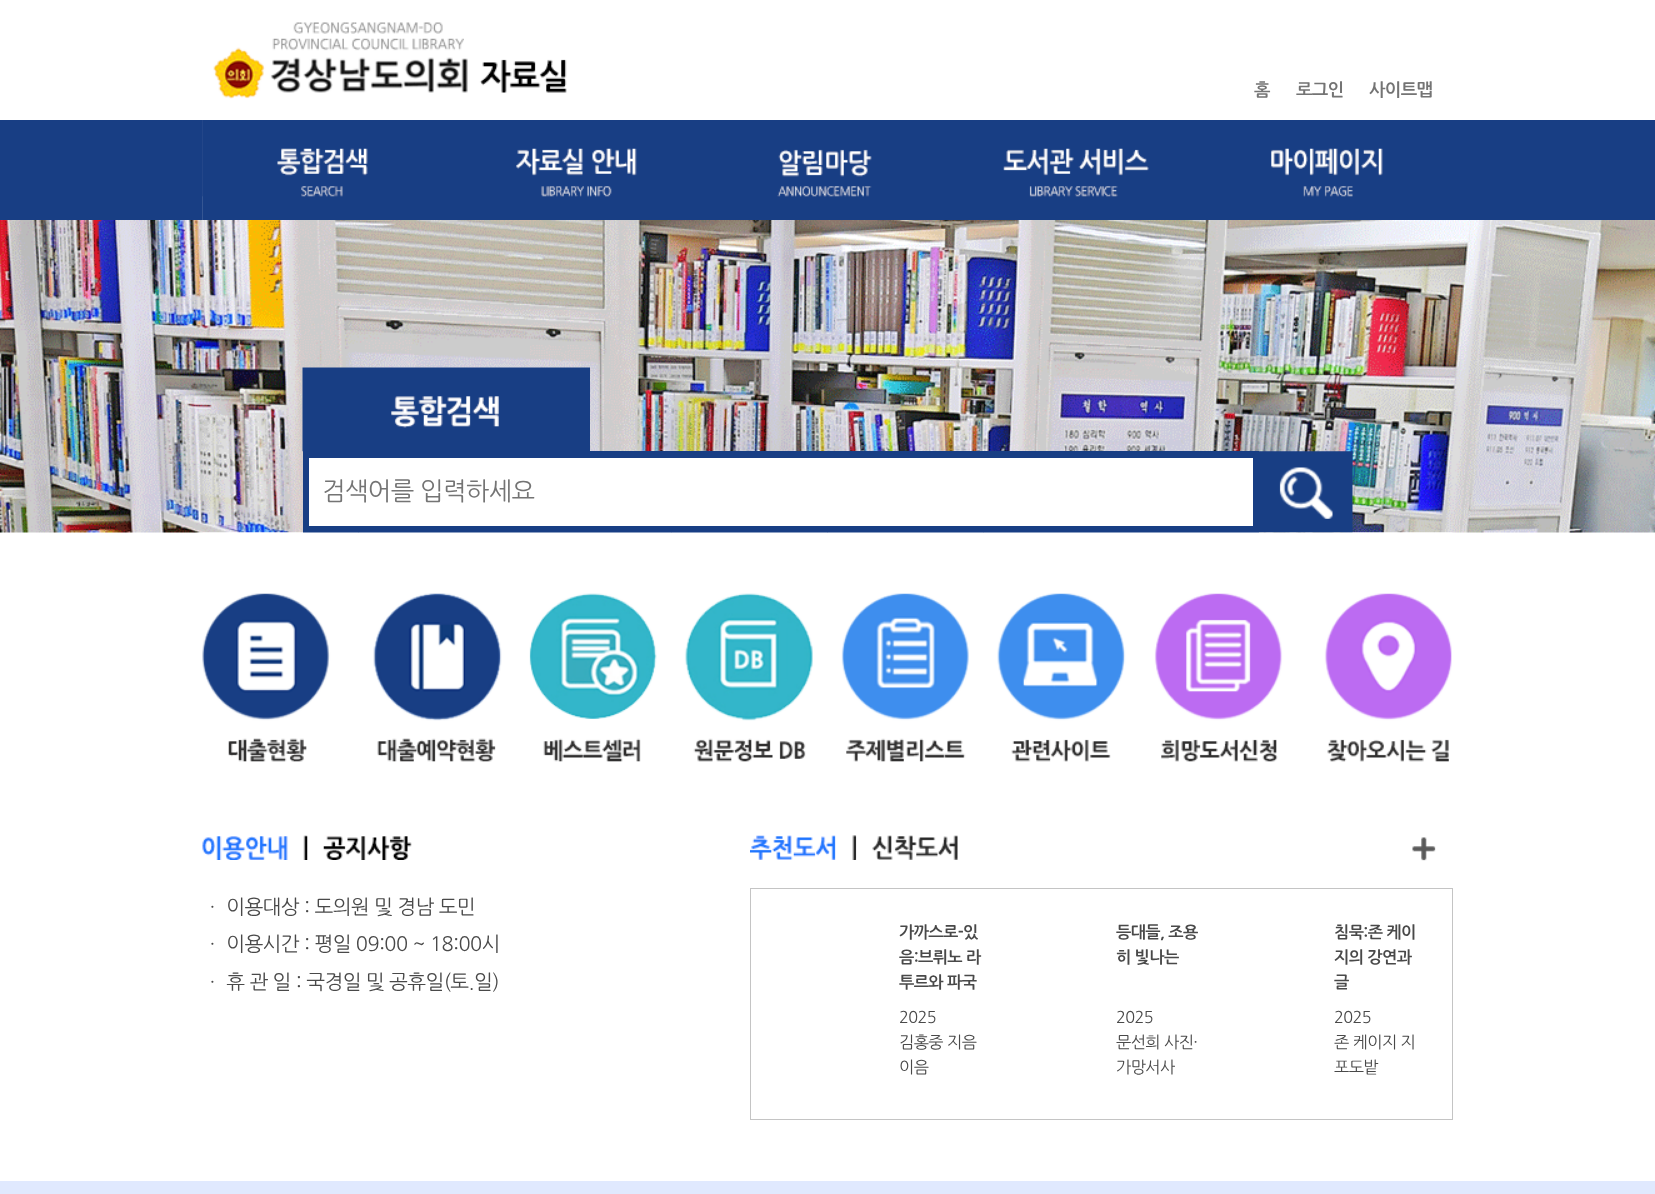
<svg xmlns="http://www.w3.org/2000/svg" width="1655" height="1194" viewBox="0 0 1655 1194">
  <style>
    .t1 { font: bold 17.5px NanumGothic; letter-spacing: -0.6px; fill: #747474; }
    .t2 { font: 25px NanumGothic; letter-spacing: -0.6px; fill: #747474; }
    .t3 { font: 20px NanumGothic; letter-spacing: -0.6px; fill: #494949; }
    .t4 { font: bold 16.25px NanumGothic; letter-spacing: -0.6px; fill: #494949; }
    .t5 { font: 16.25px NanumGothic; letter-spacing: -0.6px; fill: #494949; }
  </style>
  <rect width="100%" height="100%" fill="#fff"/>
  <image x="213" y="22" width="354" height="77" href="images/1.png"/>
  <text x="1254" y="96" class="t1">홈</text>
  <text x="1296" y="96" class="t1">로그인</text>
  <text x="1369" y="96" class="t1">사이트맵</text>
  <rect x="0" y="120" width="1655" height="100" fill="#183e84"/>
  <image x="202" y="120" width="1" height="100" href="images/2.png"/>
  <image x="202" y="120" width="1" height="100" href="images/3.png"/>
  <image x="202" y="120" width="166" height="100" href="images/4.png"/>
  <image x="516" y="148" width="121" height="49" href="images/5.png"/>
  <image x="777" y="149" width="95" height="48" href="images/6.png"/>
  <image x="1003" y="148" width="146" height="49" href="images/7.png"/>
  <image x="1271" y="148" width="112" height="49" href="images/8.png"/>
  <image x="0" y="220" width="1655" height="313" href="images/9.png"/>
  <image x="302" y="367" width="288" height="85" href="images/10.png"/>
  <rect x="303" y="451" width="956" height="82" fill="#183e84"/>
  <rect x="309" y="458" width="944" height="68" fill="#fff"/>
  <text x="322" y="500" class="t2">검색어를 입력하세요</text>
  <image x="1259" y="451" width="94" height="82" href="images/11.png"/>
  <image x="202" y="532" width="157" height="230" href="images/12.png"/>
  <image x="358" y="532" width="157" height="230" href="images/13.png"/>
  <image x="515" y="532" width="157" height="230" href="images/14.png"/>
  <image x="671" y="532" width="157" height="230" href="images/15.png"/>
  <image x="827" y="532" width="157" height="230" href="images/16.png"/>
  <image x="983" y="532" width="157" height="230" href="images/17.png"/>
  <image x="1140" y="532" width="157" height="230" href="images/18.png"/>
  <image x="1296" y="532" width="157" height="230" href="images/19.png"/>
  <image x="202" y="835" width="106" height="25" href="images/21.png"/>
  <image x="307" y="835" width="105" height="25" href="images/20.png"/>
  <text x="203" y="914" class="t3">ㆍ 이용대상 : 도의원 및 경남 도민</text>
  <text x="203" y="951" class="t3">ㆍ 이용시간 : 평일 09:00 ~ 18:00시</text>
  <text x="203" y="989" class="t3">ㆍ 휴 관 일 : 국경일 및 공휴일(토.일)</text>
  <image x="750" y="835" width="107" height="25" href="images/23.png"/>
  <image x="856" y="835" width="102" height="25" href="images/22.png"/>
  <rect x="750.5" y="888.5" width="702" height="231" fill="none" stroke="#c4c4c4"/>
  <image x="1412" y="837" width="24" height="24" href="images/24.png"/>
  <text x="899" y="938" class="t4">가까스로-있</text>
  <text x="899" y="963" class="t4">음:브뤼노 라</text>
  <text x="899" y="988" class="t4">투르와 파국</text>
  <text x="899" y="1023" class="t5">2025</text>
  <text x="899" y="1048" class="t5">김홍중 지음</text>
  <text x="899" y="1073" class="t5">이음</text>
  <text x="1116" y="938" class="t4">등대들, 조용</text>
  <text x="1116" y="963" class="t4">히 빛나는</text>
  <text x="1116" y="1023" class="t5">2025</text>
  <text x="1116" y="1048" class="t5">문선희 사진·</text>
  <text x="1116" y="1073" class="t5">가망서사</text>
  <text x="1334" y="938" class="t4">침묵:존 케이</text>
  <text x="1334" y="963" class="t4">지의 강연과</text>
  <text x="1334" y="988" class="t4">글</text>
  <text x="1334" y="1023" class="t5">2025</text>
  <text x="1334" y="1048" class="t5">존 케이지 지</text>
  <text x="1334" y="1073" class="t5">포도밭</text>
  <rect x="0" y="1181" width="1655" height="13" fill="#e0e9fe"/>
</svg>
